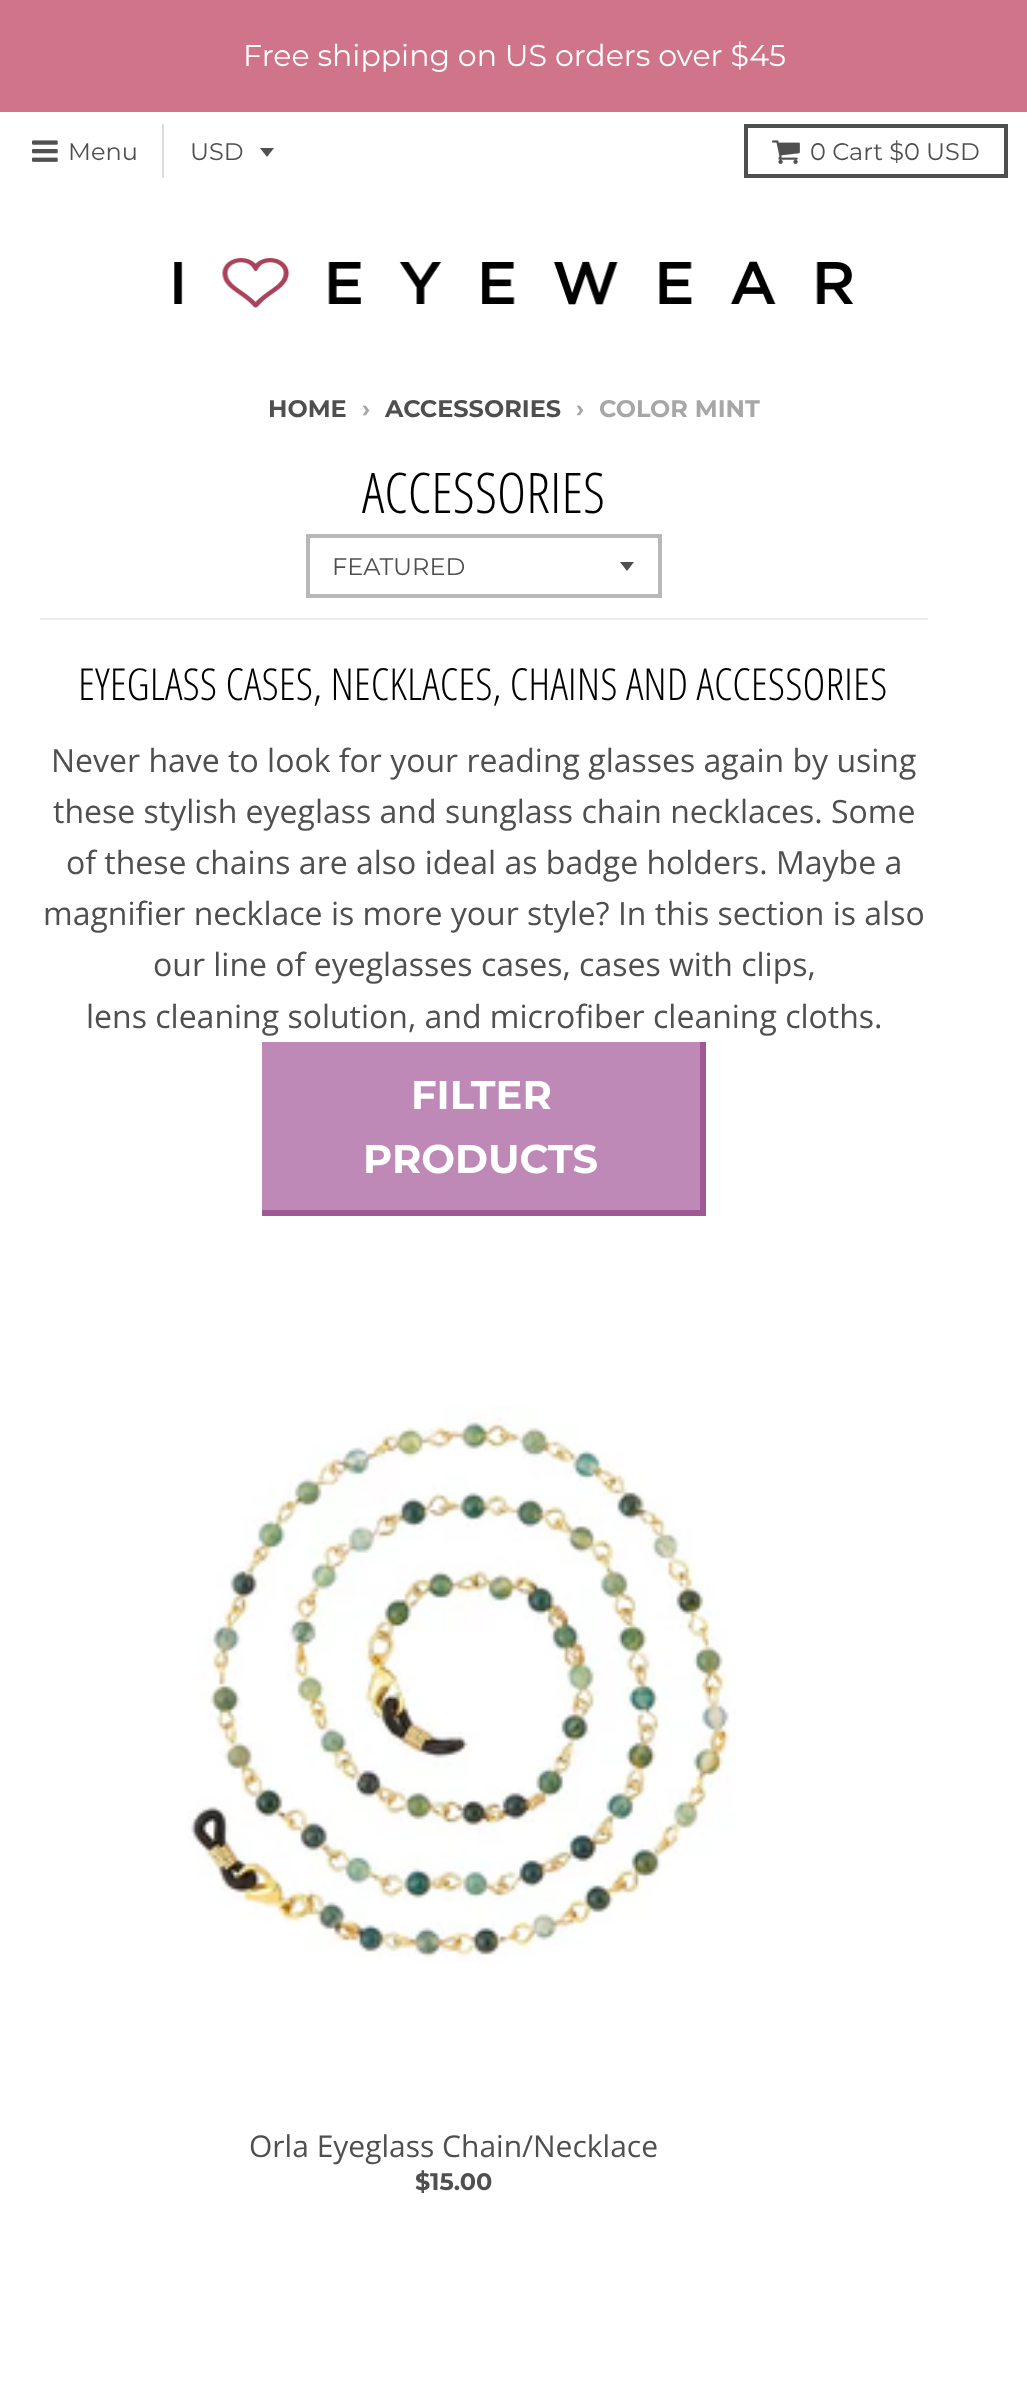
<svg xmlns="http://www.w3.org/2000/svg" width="1027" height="2389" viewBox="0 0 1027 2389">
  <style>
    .t1 { font: 30px Montserrat; fill: #fff; }
    .t2 { font: 24px Montserrat; fill: #4f4f4f; }
    .t3 { font: bold 24px Montserrat; fill: #4f4f4f; }
    .t4 { font: bold 24px Montserrat; fill: #a7a7a7; }
    .t5 { font: 300 56px Open Sans Condensed; fill: #000; }
    .t6 { font: 300 44px Open Sans Condensed; fill: #000; }
    .t7 { font: 32px Open Sans; fill: #4f4f4f; }
    .t8 { font: bold 40px Montserrat; fill: #fff; }
    .t9 { font: 30px Open Sans; fill: #4f4f4f; }
  </style>
  <rect width="100%" height="100%" fill="#fff"/>
  <rect x="0" y="0" width="1027" height="112" fill="#cf7489"/>
  <text x="243" y="66" class="t1">Free shipping on US orders over $45</text>
  <rect x="162" y="124" width="2" height="54" fill="#dcdcdc"/>
  <image x="32" y="140" width="26" height="22" href="images/1.png"/>
  <text x="68" y="160" class="t2">Menu</text>
  <path d="M260 148L267 157L274 148Z" fill="#505050"/>
  <text x="190" y="160" class="t2">USD</text>
  <rect x="746" y="126" width="260" height="50" fill="none" stroke="#505050" stroke-width="4"/>
  <image x="772" y="140" width="28" height="24" href="images/2.png"/>
  <text x="810" y="160" class="t2">0 Cart $0 USD</text>
  <image x="174" y="258" width="679" height="50" href="images/3.png"/>
  <text x="268" y="417" class="t3">HOME</text>
  <text x="362" y="417" class="t4">›</text>
  <text x="385" y="417" class="t3">ACCESSORIES</text>
  <text x="576" y="417" class="t4">›</text>
  <text x="599" y="417" class="t4">COLOR MINT</text>
  <rect x="40" y="618" width="888" height="2" fill="#ededed"/>
  <text x="362" y="513" class="t5">ACCESSORIES</text>
  <path d="M620 562L627 571L634 562Z" fill="#4f4f4f"/>
  <rect x="308" y="536" width="352" height="60" fill="none" stroke="#b8b8b8" stroke-width="4"/>
  <text x="332" y="575" class="t2">FEATURED</text>
  <text x="78" y="700" class="t6">EYEGLASS CASES, NECKLACES, CHAINS AND ACCESSORIES</text>
  <text x="51" y="772" class="t7">Never have to look for your reading glasses again by using</text>
  <text x="53" y="823" class="t7">these stylish eyeglass and sunglass chain necklaces. Some</text>
  <text x="66" y="874" class="t7">of these chains are also ideal as badge holders. Maybe a</text>
  <text x="43" y="925" class="t7">magnifier necklace is more your style? In this section is also</text>
  <text x="153" y="976" class="t7">our line of eyeglasses cases, cases with clips,</text>
  <text x="86" y="1028" class="t7">lens cleaning solution, and microfiber cleaning cloths.</text>
  <rect x="262" y="1042" width="438" height="168" fill="#be89b6"/>
  <rect x="700" y="1042" width="6" height="174" fill="#9f5994"/>
  <rect x="262" y="1210" width="444" height="6" fill="#9f5994"/>
  <text x="411" y="1109" class="t8">FILTER</text>
  <text x="363" y="1173" class="t8">PRODUCTS</text>
  <image x="187" y="1406" width="550" height="556" href="images/4.png"/>
  <text x="249" y="2157" class="t9">Orla Eyeglass Chain/Necklace</text>
  <text x="415" y="2190" class="t3">$15.00</text>
</svg>
